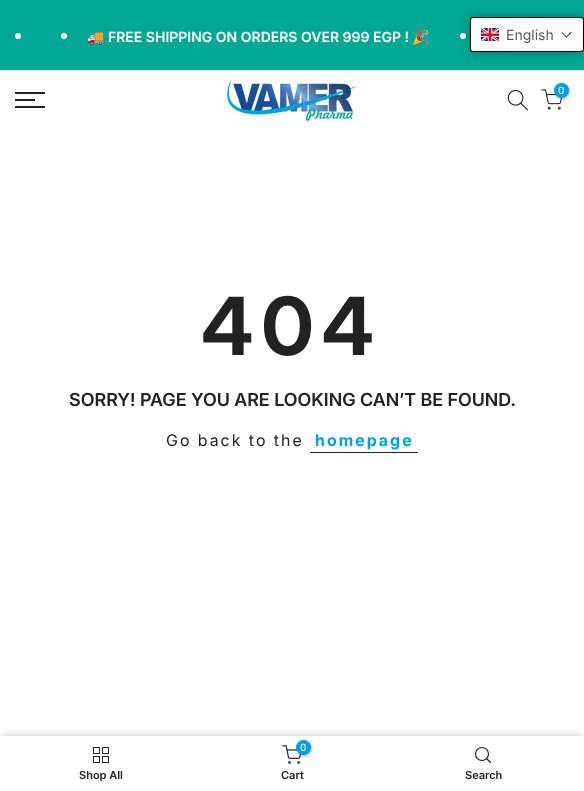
<svg xmlns="http://www.w3.org/2000/svg" width="584" height="791" viewBox="0 0 584 791">
  <style>
    .t1 { font: bold 14px Noto Color Emoji; fill: #fff; }
    .t2 { font: 600 14px Inter; fill: #fff; }
    .t3 { font: 10px Inter; fill: #fff; }
    .t4 { font: bold 80px Inter; letter-spacing: 8px; fill: #222; }
    .t5 { font: 600 18px 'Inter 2'; fill: #222; }
    .t6 { font: 16px 'Inter 2'; letter-spacing: 2px; fill: #222; }
    .t7 { font: bold 16px 'Inter 2'; letter-spacing: 2px; fill: #019fde; }
    .t8 { font: 14px Inter; fill: #5c5c5c; }
    .t9 { font: 600 11px Inter; fill: #222; }
  </style>
  <rect width="100%" height="100%" fill="#fff"/>
  <rect x="0" y="0" width="584" height="70" fill="#03a793"/>
  <circle cx="463" cy="36" r="3" fill="#fff"/>
  <rect x="470" y="17" width="114" height="35" rx="3" fill="#00000026" filter="blur(5px)"/>
  <rect x="470.5" y="17.5" width="113" height="34" rx="2.5" fill="none" stroke="#000"/>
  <circle cx="18" cy="36" r="3" fill="#fff"/>
  <circle cx="64" cy="36" r="3" fill="#fff"/>
  <text x="87" y="42" class="t1">🚚</text>
  <text x="108" y="42" class="t2">FREE SHIPPING ON ORDERS OVER 999 EGP !</text>
  <text x="412" y="42" class="t1">🎉</text>
  <image x="227" y="79" width="130" height="42" href="images/1.png"/>
  <image x="507" y="89" width="21" height="22" href="images/2.png"/>
  <image x="541" y="89" width="22" height="21" href="images/3.png"/>
  <rect x="555" y="84" width="15" height="15" rx="7.5" fill="#0000004d" filter="blur(1.5px)"/>
  <circle cx="561.5" cy="90.5" r="7.5" fill="#019fde"/>
  <text x="558" y="94" class="t3">0</text>
  <rect x="15" y="92" width="30" height="2" fill="#222"/>
  <rect x="15" y="99" width="20" height="2" fill="#222"/>
  <rect x="15" y="106" width="30" height="2" fill="#222"/>
  <text x="201" y="355" class="t4">404</text>
  <text x="69" y="406" class="t5">SORRY! PAGE YOU ARE LOOKING CAN’T BE FOUND.</text>
  <text x="166" y="446" class="t6">Go back to the</text>
  <text x="315" y="446" class="t7">homepage</text>
  <rect x="310" y="452" width="108" height="1" fill="#222"/>
  <rect x="470" y="17" width="114" height="35" rx="3" fill="#00000026" filter="blur(5px)"/>
  <rect x="470.5" y="17.5" width="113" height="34" rx="2.5" fill="#fff" stroke="#000"/>
  <image x="481" y="28" width="18" height="13" href="images/4.png"/>
  <text x="506" y="40" class="t8">English</text>
  <path d="M570.5 32L571.5 32.5L566.5 37.5L566 37Z" fill="#1a1a1a"/>
  <path d="M562 32L567 37L566.5 37.5L561.5 32.5Z" fill="#1a1a1a"/>
  <rect x="0" y="736" width="584" height="55" fill="#0000001f" filter="blur(4.5px)"/>
  <rect x="0" y="736" width="584" height="55" fill="#0000001f" filter="blur(4.5px)"/>
  <rect x="0" y="736" width="584" height="55" fill="#fff"/>
  <image x="93" y="747" width="16" height="16" href="images/5.png"/>
  <text x="79" y="779" class="t9">Shop All</text>
  <image x="282" y="745" width="19" height="19" href="images/6.png"/>
  <rect x="297" y="741" width="15" height="15" rx="7.5" fill="#0000004d" filter="blur(1.5px)"/>
  <circle cx="303.5" cy="747.5" r="7.5" fill="#019fde"/>
  <text x="300" y="751" class="t3">0</text>
  <text x="281" y="779" class="t9">Cart</text>
  <circle cx="482" cy="754" r="6.5" fill="none" stroke="#222" stroke-width="1.2"/>
  <path d="M490.5 762.5L487 759" fill="none" stroke="#222" stroke-width="1.2" stroke-linecap="round" stroke-linejoin="round"/>
  <text x="465" y="779" class="t9">Search</text>
</svg>
